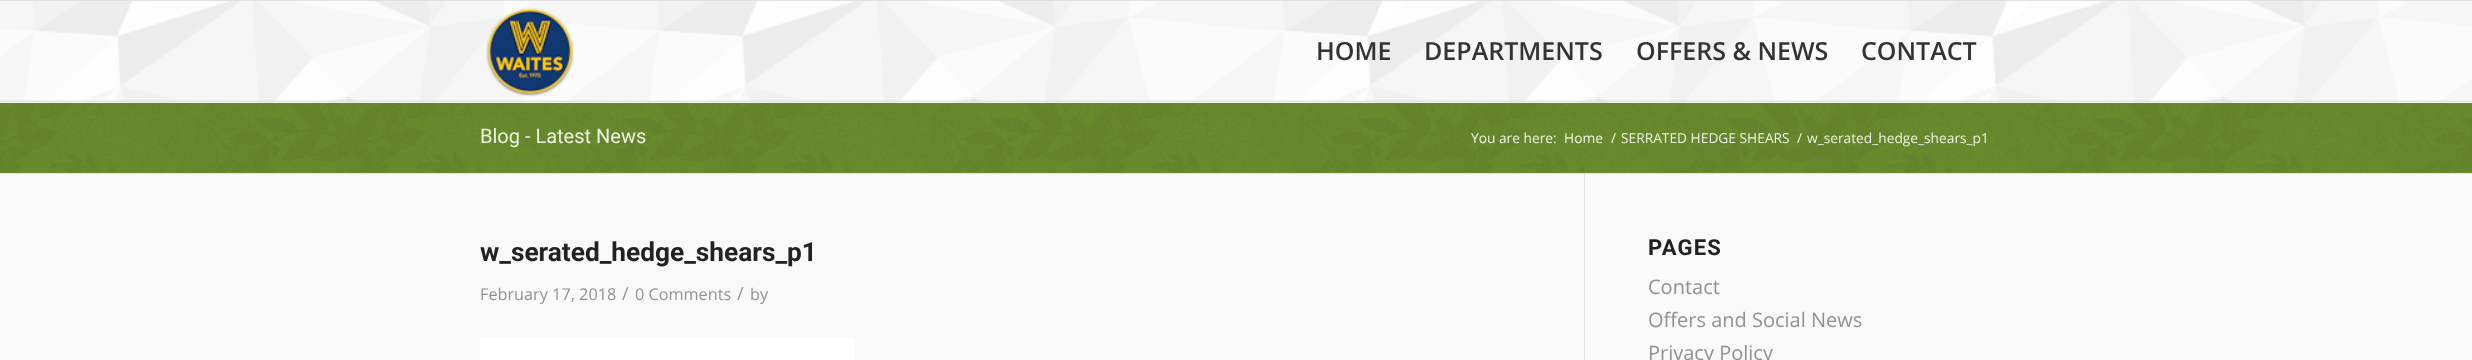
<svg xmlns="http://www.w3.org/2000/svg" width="2472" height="360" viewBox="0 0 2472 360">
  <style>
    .t1 { font: 600 25px Open Sans; fill: #333; }
    .t2 { font: 20px Roboto; fill: #ecf2e1; }
    .t3 { font: 13.75px Open Sans; fill: #ecf2e1; }
    .t4 { font: bold 26.25px Roboto; fill: #222; }
    .t5 { font: 16.25px Open Sans; fill: #919191; }
    .t6 { font: 18px Open Sans; fill: #919191; }
    .t7 { font: bold 22px Roboto; letter-spacing: 1.25px; fill: #222; }
    .t8 { font: 20px Open Sans; fill: #919191; }
  </style>
  <rect width="100%" height="100%" fill="#fff"/>
  <rect x="0" y="102" width="2472" height="71" fill="#719430"/>
  <image x="0" y="102" width="2472" height="71" href="images/3.png"/>
  <rect x="0" y="100" width="2472" height="1" fill="#8eb546"/>
  <rect x="0" y="100" width="2472" height="3" fill="#fffffff2"/>
  <image x="0" y="1" width="2472" height="102" href="images/1.png"/>
  <rect x="0" y="0" width="2472" height="1" fill="#e1e1e1"/>
  <rect x="0" y="101" width="2472" height="1" fill="#e1e1e1"/>
  <image x="486" y="8" width="88" height="89" href="images/2.png"/>
  <text x="1316" y="60" class="t1">HOME</text>
  <text x="1424" y="60" class="t1">DEPARTMENTS</text>
  <text x="1636" y="60" class="t1">OFFERS &amp; NEWS</text>
  <text x="1861" y="60" class="t1">CONTACT</text>
  <text x="480" y="143" class="t2">Blog - Latest News</text>
  <text x="1471" y="143" class="t3">You are here:</text>
  <text x="1564" y="143" class="t3">Home</text>
  <text x="1611" y="143" class="t3">/</text>
  <text x="1621" y="143" class="t3">SERRATED HEDGE SHEARS</text>
  <text x="1797" y="143" class="t3">/</text>
  <text x="1807" y="143" class="t3">w_serated_hedge_shears_p1</text>
  <rect x="0" y="174" width="2472" height="186" fill="#f9f9f9"/>
  <rect x="0" y="173" width="2472" height="1" fill="#e1e1e1"/>
  <rect x="1584" y="174" width="1" height="186" fill="#e1e1e1"/>
  <text x="480" y="261" class="t4">w_serated_hedge_shears_p1</text>
  <text x="480" y="300" class="t5">February 17, 2018</text>
  <text x="622" y="300" class="t6">/</text>
  <text x="635" y="300" class="t5">0 Comments</text>
  <text x="737" y="300" class="t6">/</text>
  <text x="750" y="300" class="t5">by</text>
  <rect x="480" y="338" width="375" height="22" fill="#fff"/>
  <text x="1648" y="255" class="t7">PAGES</text>
  <text x="1648" y="294" class="t8">Contact</text>
  <text x="1648" y="327" class="t8">Offers and Social News</text>
  <text x="1648" y="360" class="t8">Privacy Policy</text>
</svg>
